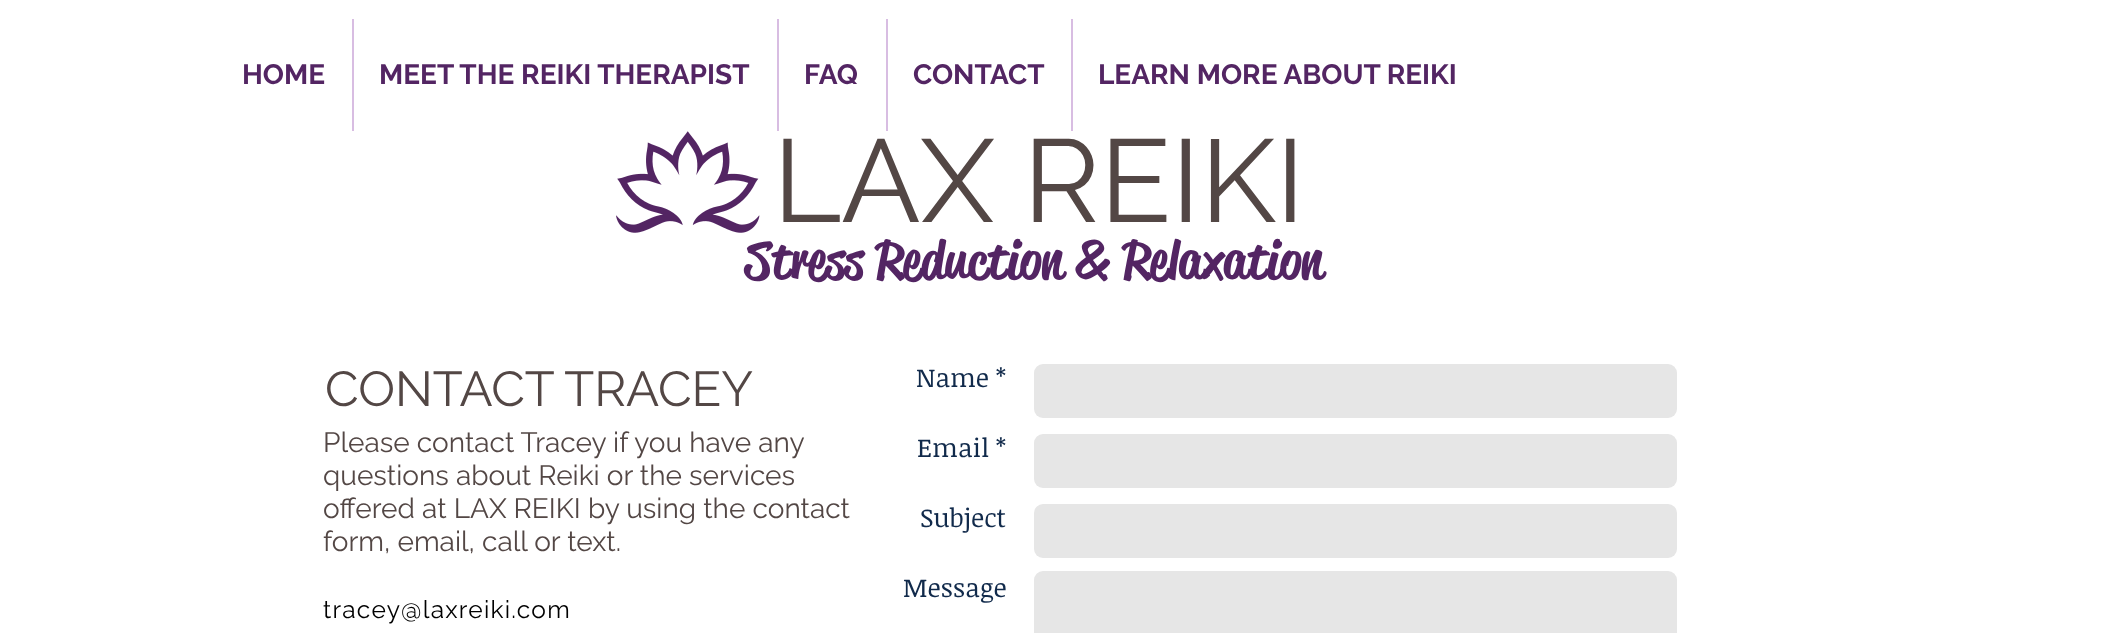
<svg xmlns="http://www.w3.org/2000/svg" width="2105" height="633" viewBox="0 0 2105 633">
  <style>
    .t1 { font: bold 28px Raleway; fill: #532563; }
    .t2 { font: 117.25px Raleway; fill: #534745; }
    .t3 { font: 500 52.5px 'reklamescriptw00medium'; fill: #532563; }
    .t4 { font: 49px Raleway; fill: #534745; }
    .t5 { font: 26px Noticia Text; fill: #112a4b; }
    .t6 { font: 28px Raleway; fill: #534745; }
    .t7 { font: 24.5px Raleway; letter-spacing: 1.25px; fill: #000; }
  </style>
  <rect width="100%" height="100%" fill="#fff"/>
  <text x="242" y="84" class="t1">HOME</text>
  <rect x="352" y="19" width="2" height="112" fill="#d8bde2"/>
  <text x="379" y="84" class="t1">MEET THE REIKI THERAPIST</text>
  <rect x="777" y="19" width="2" height="112" fill="#d8bde2"/>
  <text x="804" y="84" class="t1">FAQ</text>
  <rect x="886" y="19" width="2" height="112" fill="#d8bde2"/>
  <text x="913" y="84" class="t1">CONTACT</text>
  <rect x="1071" y="19" width="2" height="112" fill="#d8bde2"/>
  <text x="1098" y="84" class="t1">LEARN MORE ABOUT REIKI</text>
  <image x="616" y="131" width="144" height="102" href="images/1.png"/>
  <text x="773" y="222" class="t2">LAX REIKI</text>
  <text x="745" y="278" class="t3">Stress Reduction &amp; Relaxation</text>
  <text x="325" y="406" class="t4">CONTACT TRACEY</text>
  <text x="916" y="387" class="t5">Name *</text>
  <rect x="1034" y="364" width="643" height="54" rx="9" fill="#e6e6e6"/>
  <text x="917" y="457" class="t5">Email *</text>
  <rect x="1034" y="434" width="643" height="54" rx="9" fill="#e6e6e6"/>
  <text x="920" y="527" class="t5">Subject</text>
  <rect x="1034" y="504" width="643" height="54" rx="9" fill="#e6e6e6"/>
  <text x="903" y="597" class="t5">Message</text>
  <rect x="1034" y="571" width="643" height="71" rx="9" fill="#e6e6e6"/>
  <text x="323" y="452" class="t6">Please contact Tracey if you have any</text>
  <text x="323" y="485" class="t6">questions about Reiki or the services</text>
  <text x="323" y="518" class="t6">offered at LAX REIKI by using the contact</text>
  <text x="323" y="551" class="t6">form, email, call or text.</text>
  <text x="323" y="618" class="t7">tracey@laxreiki.com</text>
</svg>
